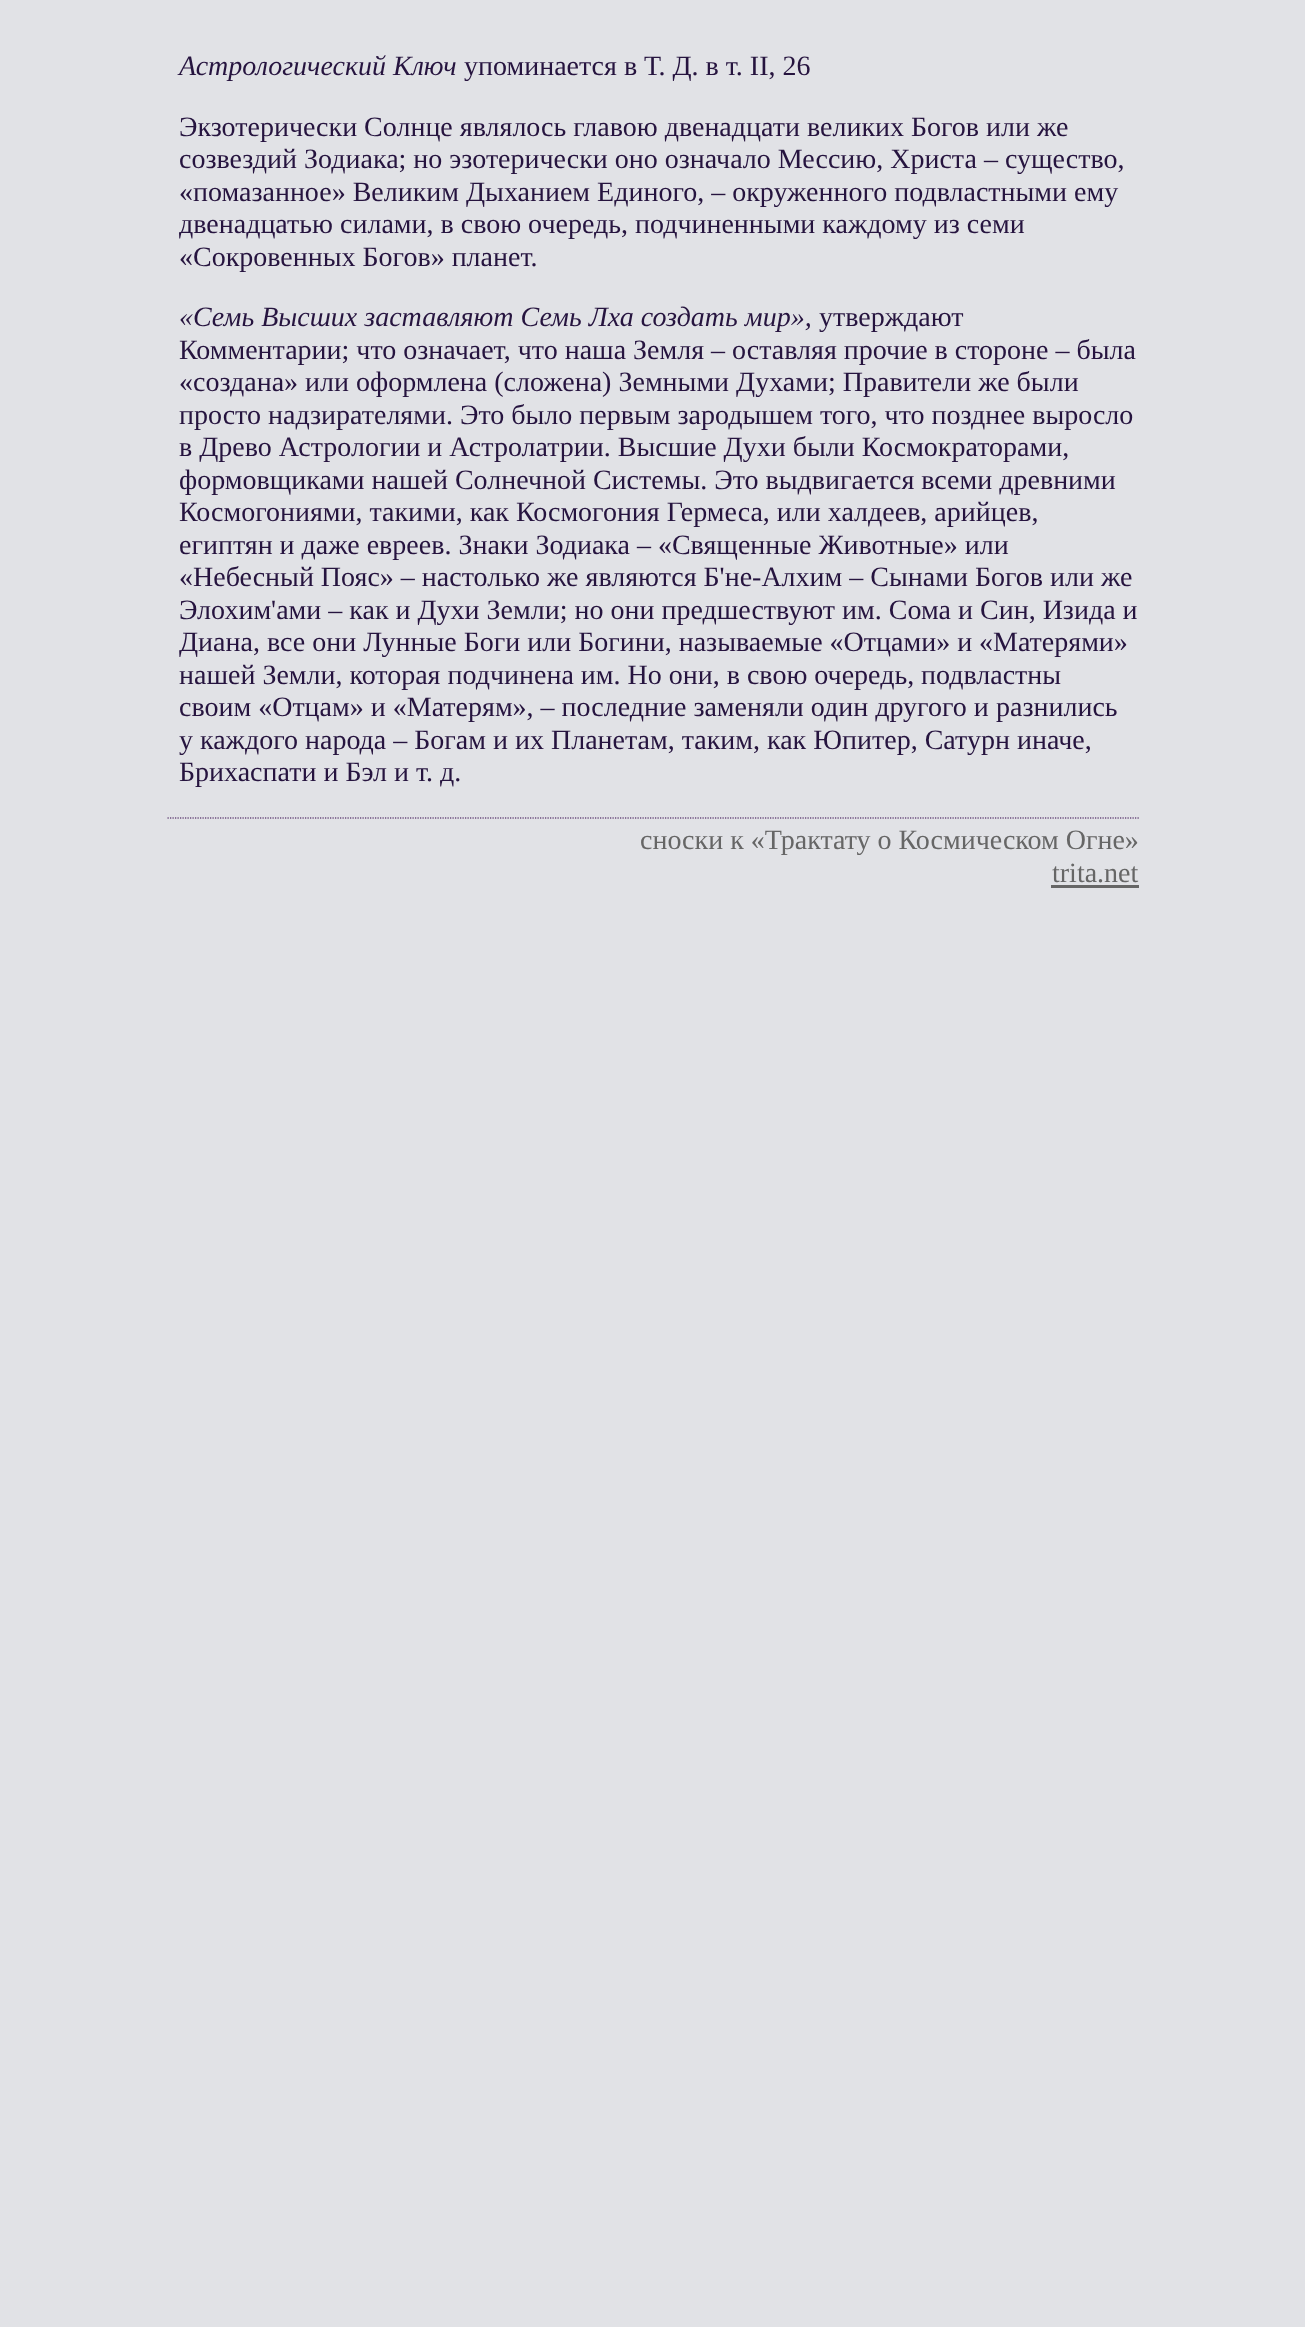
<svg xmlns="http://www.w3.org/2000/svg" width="1305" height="2327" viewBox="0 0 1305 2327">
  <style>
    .t1 { font: italic 28px Liberation Serif; fill: #26143f; }
    .t2 { font: 28px Liberation Serif; fill: #26143f; }
    .t3 { font: 28px Liberation Serif; fill: #666; }
  </style>
  <rect width="100%" height="100%" fill="#e1e2e6"/>
  <text x="179" y="75" class="t1">Астрологический Ключ</text>
  <text x="464" y="75" class="t2">упоминается в Т. Д. в т. II, 26</text>
  <text x="179" y="136" class="t2">Экзотерически Солнце являлось главою двенадцати великих Богов или же</text>
  <text x="179" y="168" class="t2">созвездий Зодиака; но эзотерически оно означало Мессию, Христа</text>
  <text x="984" y="168" class="t2">– существо,</text>
  <text x="179" y="201" class="t2">«помазанное» Великим Дыханием Единого, – окруженного подвластными</text>
  <text x="1074" y="201" class="t2">ему</text>
  <text x="179" y="233" class="t2">двенадцатью силами, в свою очередь, подчиненными каждому из семи</text>
  <text x="179" y="266" class="t2">«Сокровенных Богов» планет.</text>
  <text x="179" y="326" class="t1">«Семь Высших заставляют Семь Лха создать мир»,</text>
  <text x="819" y="326" class="t2">утверждают</text>
  <text x="179" y="359" class="t2">Комментарии; что означает, что наша Земля – оставляя прочие в стороне – была</text>
  <text x="179" y="391" class="t2">«создана» или оформлена (сложена) Земными Духами; Правители же были</text>
  <text x="179" y="424" class="t2">просто надзирателями. Это было первым зародышем того, что позднее выросло</text>
  <text x="179" y="456" class="t2">в Древо Астрологии и Астролатрии. Высшие Духи были Космократорами,</text>
  <text x="179" y="489" class="t2">формовщиками нашей Солнечной Системы. Это выдвигается всеми древними</text>
  <text x="179" y="521" class="t2">Космогониями, такими, как Космогония Гермеса, или халдеев, арийцев,</text>
  <text x="179" y="554" class="t2">египтян и даже евреев. Знаки Зодиака – «Священные Животные» или</text>
  <text x="179" y="586" class="t2">«Небесный Пояс» – настолько же являются Б'не-Алхим – Сынами Богов или же</text>
  <text x="179" y="619" class="t2">Элохим'ами – как и Духи Земли; но они предшествуют им. Сома</text>
  <text x="958" y="619" class="t2">и Син, Изида и</text>
  <text x="179" y="651" class="t2">Диана, все они Лунные Боги или Богини, называемые «Отцами» и</text>
  <text x="979" y="651" class="t2">«Матерями»</text>
  <text x="179" y="684" class="t2">нашей Земли, которая подчинена им. Но они, в свою очередь,</text>
  <text x="921" y="684" class="t2">подвластны</text>
  <text x="179" y="716" class="t2">своим «Отцам» и «Матерям», – последние заменяли один другого и</text>
  <text x="996" y="716" class="t2">разнились</text>
  <text x="179" y="749" class="t2">у каждого народа – Богам и их Планетам, таким, как Юпитер, Сатурн</text>
  <text x="1017" y="749" class="t2">иначе,</text>
  <text x="179" y="781" class="t2">Брихаспати и Бэл и т. д.</text>
  <path d="M167.5 818H1139" fill="none" stroke="#310048" stroke-width="1.2" stroke-dasharray="1.25 1.25"/>
  <text x="640" y="849" class="t3">сноски к «Трактату о Космическом Огне»</text>
  <text x="1052" y="882" class="t3">trita.net</text>
  <rect x="1051" y="885" width="88" height="3" fill="#666"/>
</svg>
